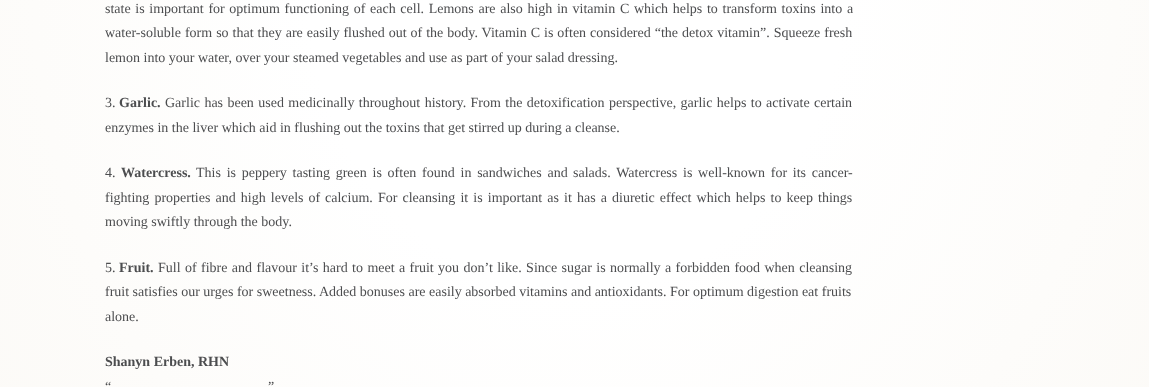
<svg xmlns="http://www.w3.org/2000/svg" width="1149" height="387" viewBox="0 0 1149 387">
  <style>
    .t1 { font: 14px Liberation Serif; fill: #4c4d4f; }
    .t2 { font: bold 14px Liberation Serif; fill: #4c4d4f; }
  </style>
  <defs>
    <radialGradient id="g1" gradientUnits="userSpaceOnUse" cx="0" cy="0" r="1" gradientTransform="matrix(812 0 0 931 575 -18)"><stop offset="0.33" stop-color="#fff"/><stop offset="1" stop-color="#fbf9f5"/></radialGradient>
  </defs>
  <rect width="100%" height="100%" fill="#fff"/>
  <rect x="0" y="0" width="1149" height="387" fill="url(#g1)"/>
  <text x="105" y="13" word-spacing="1.15" class="t1">state is important for optimum functioning of each cell. Lemons are also high in vitamin C which helps to transform toxins into a</text>
  <text x="105" y="37" word-spacing="0.5" class="t1">water-soluble form so that they are easily flushed out of the body. Vitamin C is often considered “the detox vitamin”. Squeeze fresh</text>
  <text x="105" y="62" class="t1">lemon into your water, over your steamed vegetables and use as part of your salad dressing.</text>
  <text x="105" y="107" class="t1">3.</text>
  <text x="119" y="107" class="t2">Garlic.</text>
  <text x="165" y="107" word-spacing="0.9" class="t1">Garlic has been used medicinally throughout history. From the detoxification perspective, garlic helps to activate certain</text>
  <text x="105" y="132" class="t1">enzymes in the liver which aid in flushing out the toxins that get stirred up during a cleanse.</text>
  <text x="105" y="177" class="t1">4.</text>
  <text x="121" y="177" class="t2">Watercress.</text>
  <text x="196" y="177" word-spacing="2.25" class="t1">This is peppery tasting green is often found in sandwiches and</text>
  <text x="573" y="177" word-spacing="2.25" class="t1">salads. Watercress is well-known for its cancer-</text>
  <text x="105" y="202" word-spacing="1.6" class="t1">fighting properties and high levels of</text>
  <text x="325" y="202" word-spacing="1.6" class="t1">calcium. For cleansing it is important as it has a diuretic effect which helps to keep things</text>
  <text x="105" y="226" class="t1">moving swiftly through the body.</text>
  <text x="105" y="272" class="t1">5.</text>
  <text x="119" y="272" class="t2">Fruit.</text>
  <text x="158" y="272" word-spacing="0.9" class="t1">Full of fibre and flavour it’s hard to meet a fruit you don’t like. Since sugar is normally a forbidden food when cleansing</text>
  <text x="105" y="296" class="t1">fruit satisfies our urges for sweetness. Added bonuses are easily absorbed vitamins and antioxidants. For optimum digestion eat fruits</text>
  <text x="105" y="321" class="t1">alone.</text>
  <text x="105" y="366" class="t2">Shanyn Erben, RHN</text>
  <text x="105" y="391" class="t1">“</text>
  <text x="268" y="391" class="t1">”</text>
</svg>
